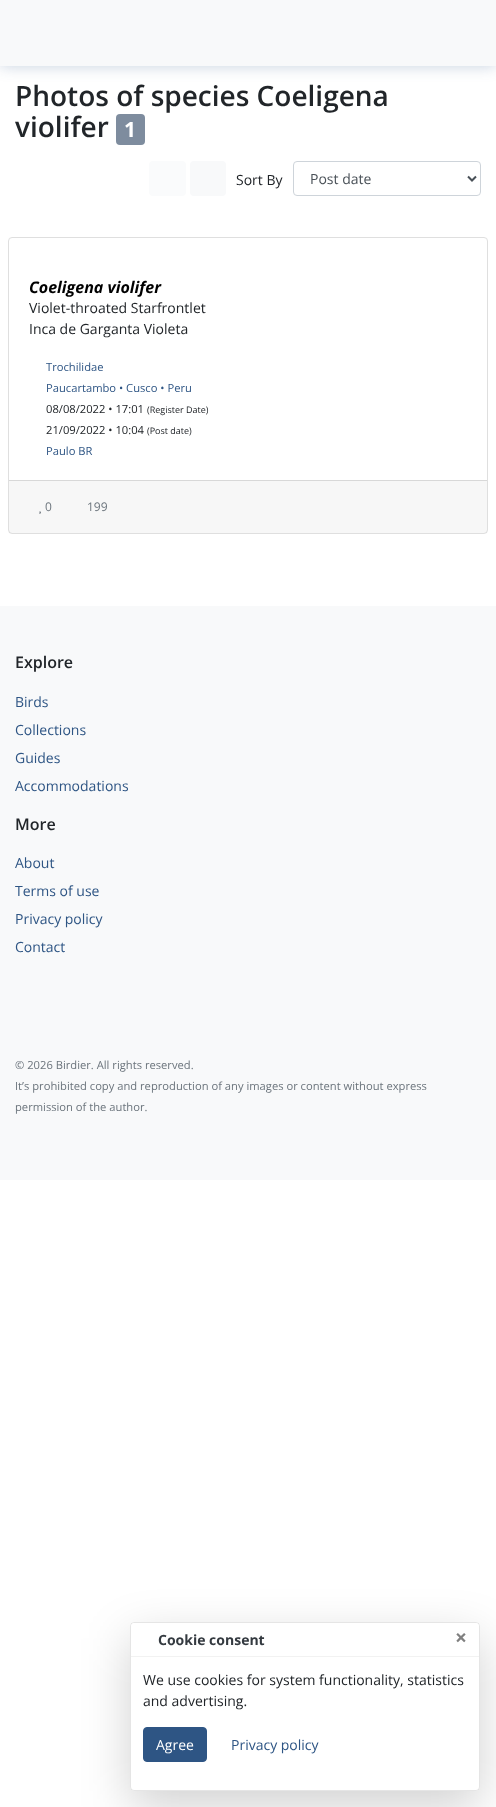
<svg xmlns="http://www.w3.org/2000/svg" width="496" height="1807" viewBox="0 0 496 1807">
  <style>
    .t1 { font: 600 28px Open Sans; fill: #212529; }
    .t2 { font: bold 21px Open Sans; fill: #fff; }
    .t3 { font: 14px Open Sans; fill: #212529; }
    .t4 { font: 14px Open Sans; fill: #495057; }
    .t5 { font: italic bold 16px Open Sans; fill: #000; }
    .t6 { font: 11.2px Open Sans; fill: #2e5584; }
    .t7 { font: 11.2px Open Sans; fill: #212529; }
    .t8 { font: 9px Open Sans; fill: #212529; }
    .t9 { font: 12px Open Sans; fill: #6c757d; }
    .t10 { font: 600 16px Open Sans; fill: #212529; }
    .t11 { font: 14px Open Sans; fill: #2e5584; }
    .t12 { font: 11.2px Open Sans; fill: #6c757d; }
    .t13 { font: bold 14px Open Sans; fill: #343a40; }
    .t14 { font: bold 21px Open Sans; fill: #808080; }
    .t15 { font: 14px Open Sans; fill: #fff; }
  </style>
  <defs>
    <clipPath id="clip1"><path d="M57 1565H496V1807H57ZM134 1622H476C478 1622 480 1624 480 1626V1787C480 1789 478 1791 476 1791H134C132 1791 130 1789 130 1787V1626C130 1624 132 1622 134 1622Z" clip-rule="evenodd"/></clipPath>
  </defs>
  <rect width="100%" height="100%" fill="#fff"/>
  <rect x="0" y="0" width="496" height="66" fill="#1a488040" filter="blur(7.5px)"/>
  <rect x="0" y="0" width="496" height="66" fill="#f8f9fa"/>
  <text x="15" y="106" class="t1">Photos of species Coeligena</text>
  <text x="15" y="137" class="t1">violifer</text>
  <rect x="116" y="114" width="29" height="31" rx="4" fill="#7e8c9e"/>
  <text x="124" y="137" class="t2">1</text>
  <rect x="149" y="161" width="37" height="35" rx="4" fill="#fafbfc"/>
  <rect x="190" y="161" width="36" height="35" rx="4" fill="#f8f9fa"/>
  <text x="236" y="185" class="t3">Sort By</text>
  <rect x="293.5" y="161.5" width="187" height="34" rx="3.5" fill="none" stroke="#ced4da"/>
  <path d="M468 176.5L472 180.5L476 176.5" fill="none" stroke="#495057" stroke-width="2"/>
  <text x="310" y="184" class="t4">Post date</text>
  <rect x="8.5" y="237.5" width="479" height="296" rx="3.5" fill="none" stroke="#dfdfdf"/>
  <text x="29" y="293" class="t5">Coeligena violifer</text>
  <text x="29" y="313" class="t3">Violet-throated Starfrontlet</text>
  <text x="29" y="334" class="t3">Inca de Garganta Violeta</text>
  <text x="46" y="371" class="t6">Trochilidae</text>
  <text x="46" y="392" class="t6">Paucartambo • Cusco • Peru</text>
  <text x="46" y="413" class="t7">08/08/2022 • 17:01</text>
  <text x="147" y="413" class="t8">(Register Date)</text>
  <text x="46" y="434" class="t7">21/09/2022 • 10:04</text>
  <text x="147" y="434" class="t8">(Post date)</text>
  <text x="46" y="455" class="t6">Paulo BR</text>
  <rect x="9" y="481" width="478" height="52" fill="#00000008"/>
  <rect x="9" y="480" width="478" height="1" fill="#d8d8d8"/>
  <text x="45" y="511" class="t9">0</text>
  <image x="39" y="511" width="2" height="3" href="images/1.png"/>
  <text x="87" y="511" class="t9">199</text>
  <rect x="0" y="606" width="496" height="574" fill="#f8f9fa"/>
  <text x="15" y="668" class="t10">Explore</text>
  <text x="15" y="707" class="t11">Birds</text>
  <text x="15" y="735" class="t11">Collections</text>
  <text x="15" y="763" class="t11">Guides</text>
  <text x="15" y="791" class="t11">Accommodations</text>
  <text x="15" y="830" class="t10">More</text>
  <text x="15" y="868" class="t11">About</text>
  <text x="15" y="896" class="t11">Terms of use</text>
  <text x="15" y="924" class="t11">Privacy policy</text>
  <text x="15" y="952" class="t11">Contact</text>
  <text x="15" y="1069" class="t12">© 2026 Birdier. All rights reserved.</text>
  <text x="15" y="1090" class="t12">It’s prohibited copy and reproduction of any images or content without express</text>
  <text x="15" y="1111" class="t12">permission of the author.</text>
  <g clip-path="url(#clip1)">
    <rect x="130" y="1638" width="350" height="169" rx="4" fill="#0000002e" filter="blur(24px)"/>
  </g>
  <rect x="130.5" y="1622.5" width="349" height="168" rx="3.5" fill="none" stroke="#0000001a"/>
  <path d="M134 1623H476C477.5 1623 479 1624.5 479 1626V1656H131V1626C131 1624.5 132.5 1623 134 1623Z" fill="#ffffffd9"/>
  <rect x="131" y="1656" width="348" height="1" fill="#f2f2f2"/>
  <text x="158" y="1645" class="t13">Cookie consent</text>
  <text x="455" y="1645" class="t14">×</text>
  <text x="143" y="1685" class="t3">We use cookies for system functionality, statistics</text>
  <text x="143" y="1706" class="t3">and advertising.</text>
  <rect x="143.5" y="1727.5" width="63" height="34" rx="3.5" fill="#2e5584" stroke="#2e5584"/>
  <text x="156" y="1750" class="t15">Agree</text>
  <text x="231" y="1750" class="t11">Privacy policy</text>
</svg>
